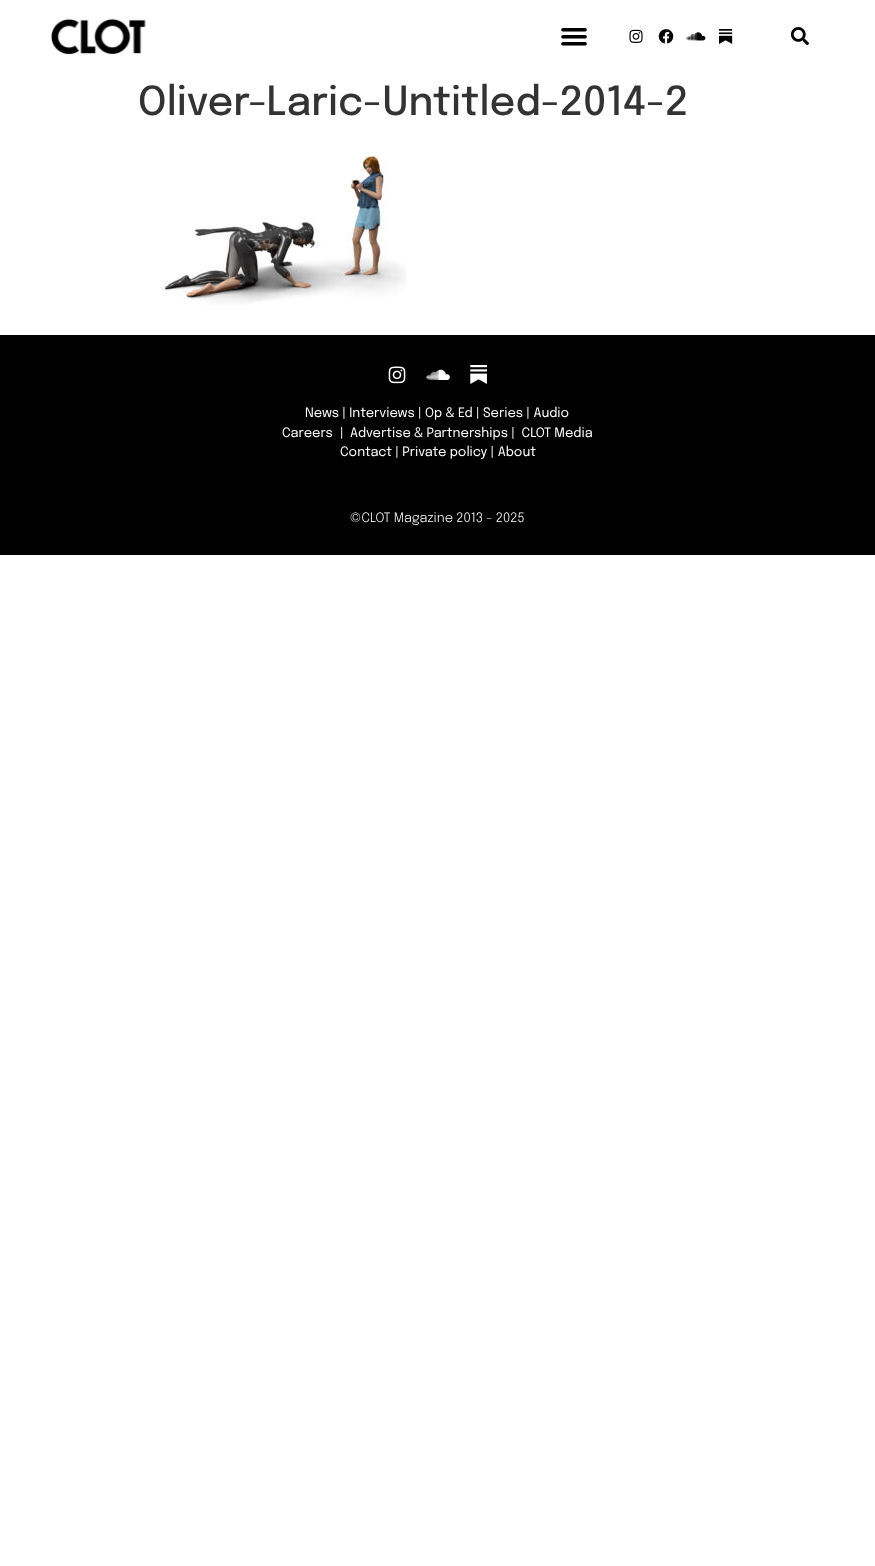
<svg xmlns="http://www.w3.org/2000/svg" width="875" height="1566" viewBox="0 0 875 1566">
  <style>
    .t1 { font: 500 40px Epilogue; fill: #333; }
    .t2 { font: 13px Epilogue; fill: #fff; }
    .t3 { font: 300 13px Epilogue; fill: #fff; }
  </style>
  <rect width="100%" height="100%" fill="#fff"/>
  <image x="50" y="18" width="96" height="37" href="images/1.png"/>
  <image x="561" y="28" width="26" height="18" href="images/2.png"/>
  <image x="629" y="29" width="14" height="14" href="images/3.png"/>
  <image x="658" y="29" width="16" height="15" href="images/4.png"/>
  <image x="686" y="32" width="20" height="9" href="images/5.png"/>
  <image x="719" y="29" width="14" height="15" href="images/6.png"/>
  <image x="790" y="27" width="19" height="19" href="images/7.png"/>
  <text x="138" y="115" class="t1">Oliver-Laric-Untitled-2014-2</text>
  <image x="162" y="152" width="245" height="153" href="images/8.png"/>
  <rect x="0" y="335" width="875" height="220" fill="#000"/>
  <image x="388" y="366" width="18" height="18" href="images/9.png"/>
  <image x="426" y="369" width="24" height="11" href="images/10.png"/>
  <image x="470" y="365" width="17" height="19" href="images/11.png"/>
  <text x="305" y="417" class="t2">News | Interviews | Op &amp; Ed | Series | Audio</text>
  <text x="282" y="437" class="t2">Careers</text>
  <text x="340" y="437" class="t2">|</text>
  <text x="350" y="437" class="t2" xml:space="preserve">Advertise &amp; Partnerships |  CLOT Media</text>
  <text x="340" y="456" class="t2">Contact | Private policy | About</text>
  <text x="350" y="522" class="t3">©CLOT Magazine 2013 - 2025</text>
</svg>
